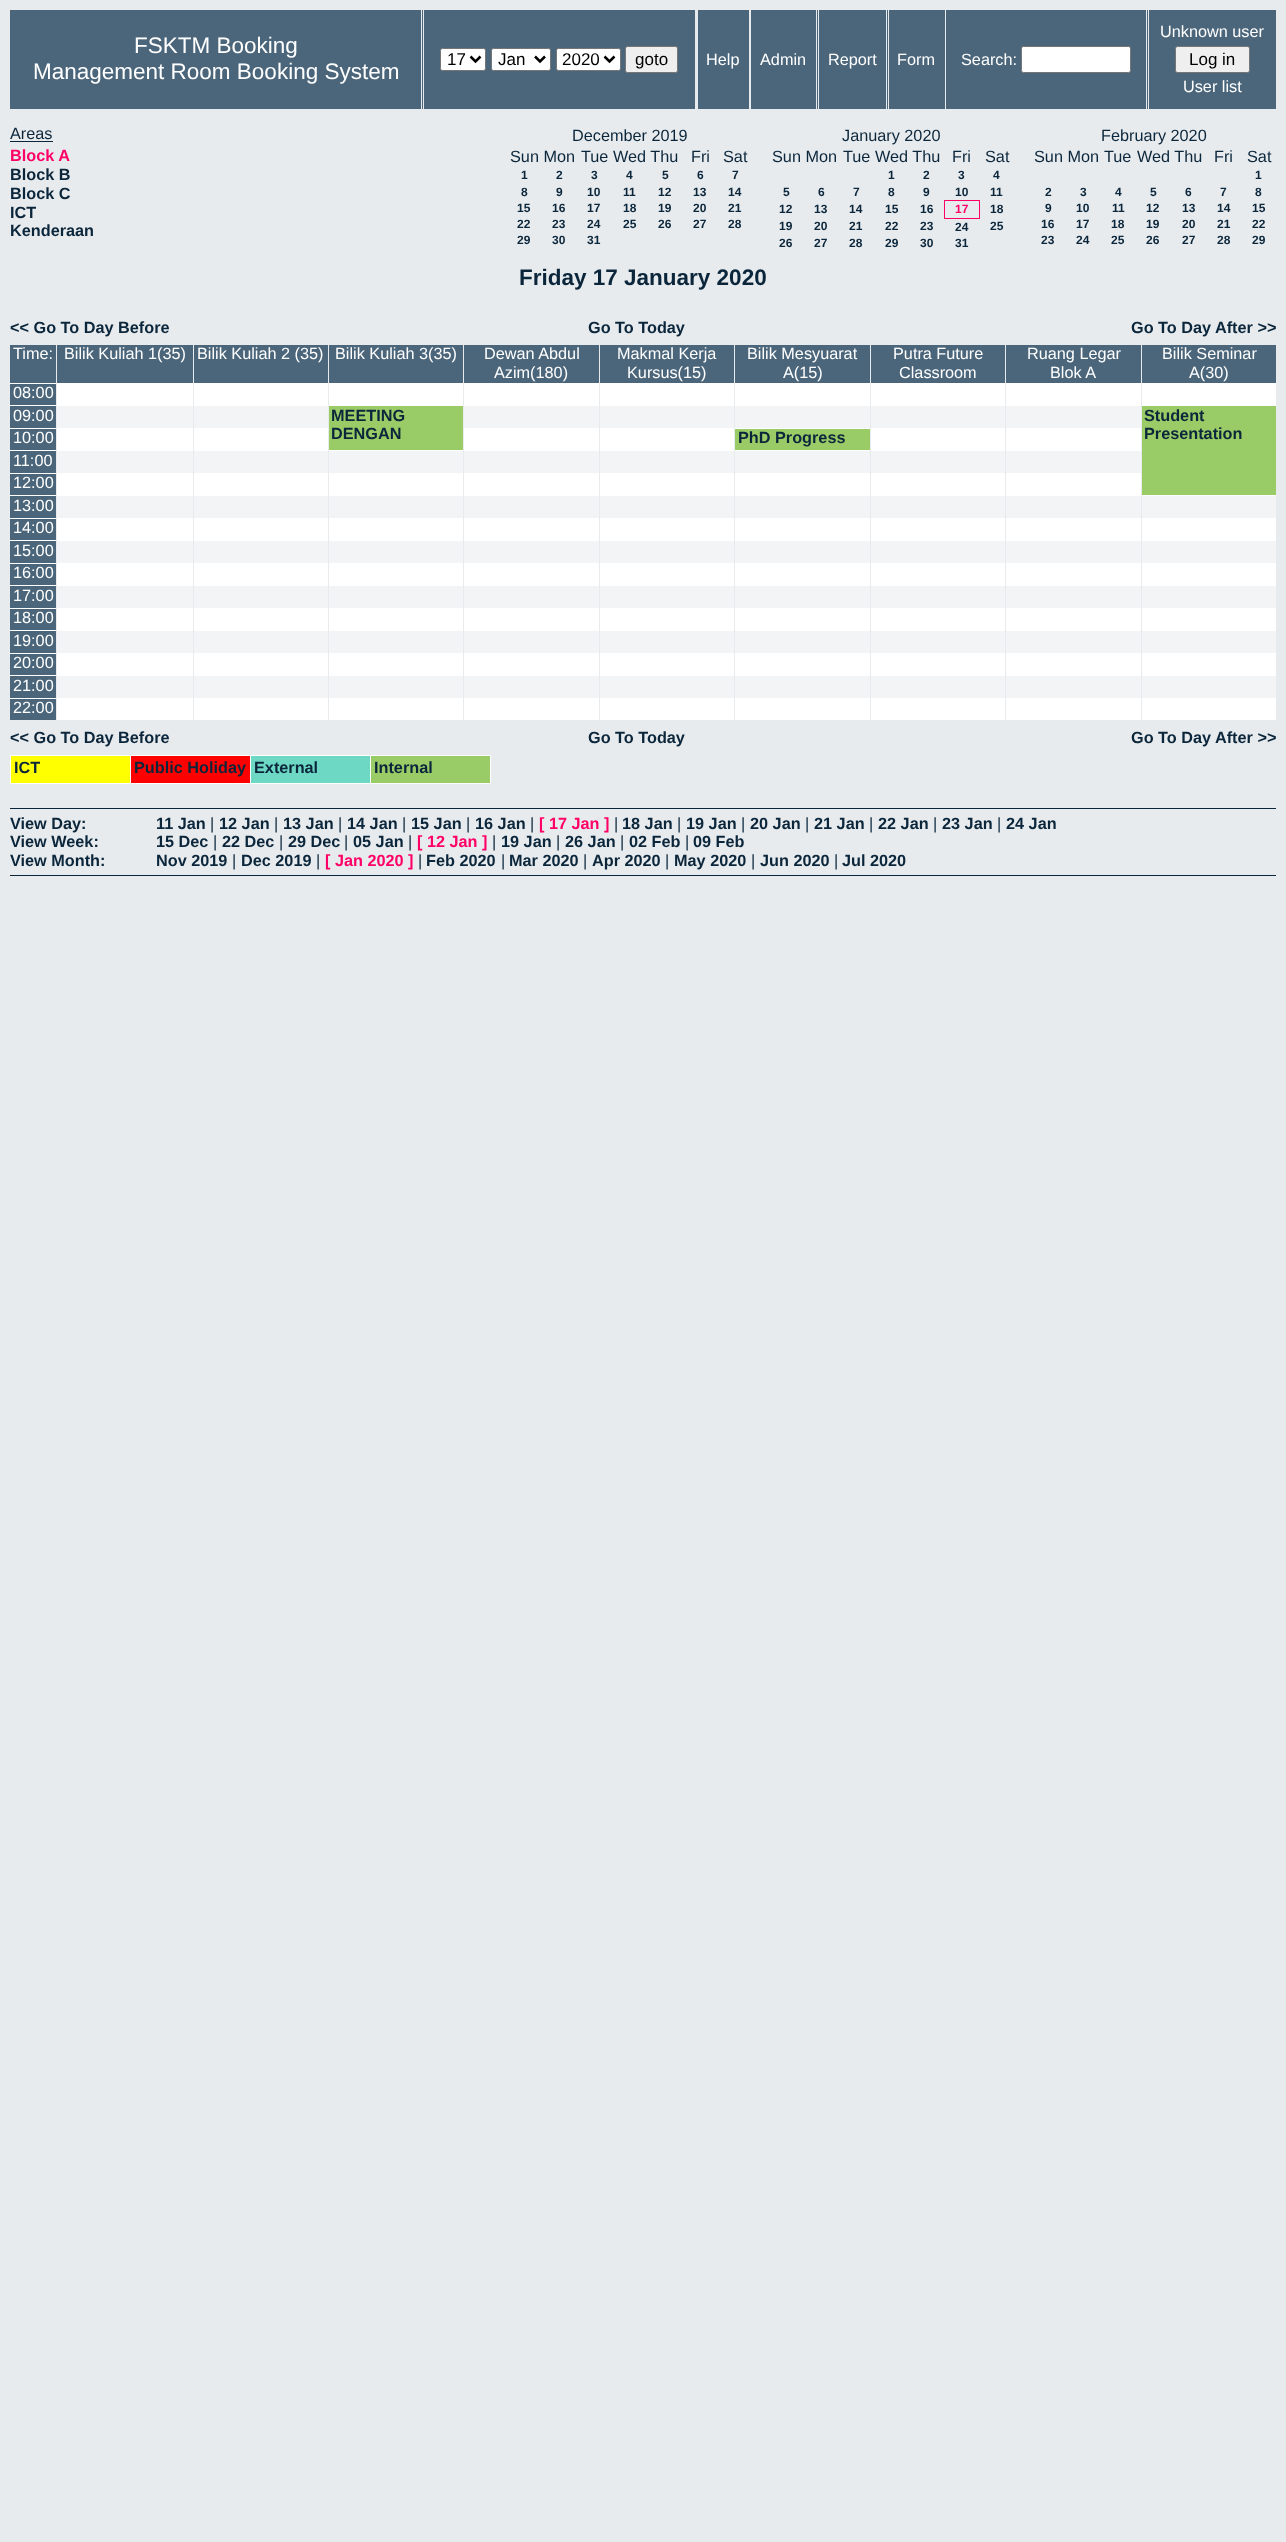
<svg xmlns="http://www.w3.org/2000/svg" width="1286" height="2542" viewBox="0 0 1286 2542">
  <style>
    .t1 { font: 22.5px Liberation Sans; fill: #fff; }
    .t2 { font: 17px Liberation Sans; fill: #000; }
    .t3 { font: 16.25px Liberation Sans; fill: #fff; }
    .t4 { font: 16.25px Liberation Sans; fill: #0b263b; }
    .t5 { font: bold 16.25px Liberation Sans; fill: #f06; }
    .t6 { font: bold 16.25px Liberation Sans; fill: #0b263b; }
    .t7 { font: bold 12px Liberation Sans; fill: #0b263b; }
    .t8 { font: bold 12px Liberation Sans; fill: #f06; }
    .t9 { font: bold 22.5px Liberation Sans; fill: #0b263b; }
  </style>
  <rect width="100%" height="100%" fill="#e7ebee"/>
  <rect x="10" y="10" width="413" height="99" fill="#4b667b"/>
  <text x="134" y="53" class="t1">FSKTM Booking</text>
  <text x="33" y="79" class="t1">Management Room Booking System</text>
  <rect x="424" y="10" width="271" height="99" fill="#4b667b"/>
  <rect x="421" y="10" width="1" height="99" fill="#e7ebee"/>
  <rect x="440.5" y="48.5" width="45" height="22" rx="2" fill="#fff" stroke="#767676"/>
  <path d="M470.5 56.5L475.5 61.5L480.5 56.5" fill="none" stroke="#000" stroke-width="2.5"/>
  <text x="447" y="65" class="t2">17</text>
  <rect x="491.5" y="48.5" width="59" height="22" rx="2" fill="#fff" stroke="#767676"/>
  <path d="M535 56.5L540 61.5L545 56.5" fill="none" stroke="#000" stroke-width="2.5"/>
  <text x="498" y="65" class="t2">Jan</text>
  <rect x="556.5" y="48.5" width="64" height="22" rx="2" fill="#fff" stroke="#767676"/>
  <path d="M604.5 56.5L609.5 61.5L614.5 56.5" fill="none" stroke="#000" stroke-width="2.5"/>
  <text x="562" y="65" class="t2">2020</text>
  <rect x="625.5" y="46.5" width="52" height="26" rx="2" fill="#efefef" stroke="#767676"/>
  <text x="635" y="65" class="t2">goto</text>
  <rect x="698" y="10" width="51" height="99" fill="#4b667b"/>
  <text x="706" y="65" class="t3">Help</text>
  <rect x="751" y="10" width="67" height="99" fill="#4b667b"/>
  <text x="760" y="65" class="t3">Admin</text>
  <rect x="819" y="10" width="69" height="99" fill="#4b667b"/>
  <rect x="816" y="10" width="1" height="99" fill="#e7ebee"/>
  <text x="828" y="65" class="t3">Report</text>
  <rect x="889" y="10" width="56" height="99" fill="#4b667b"/>
  <rect x="886" y="10" width="1" height="99" fill="#e7ebee"/>
  <text x="897" y="65" class="t3">Form</text>
  <rect x="946" y="10" width="202" height="99" fill="#4b667b"/>
  <text x="961" y="65" class="t3">Search:</text>
  <rect x="1021.5" y="46.5" width="109" height="26" rx="2" fill="#fff" stroke="#767676"/>
  <rect x="1149" y="10" width="127" height="99" fill="#4b667b"/>
  <rect x="1146" y="10" width="1" height="99" fill="#e7ebee"/>
  <text x="1160" y="37" class="t3">Unknown user</text>
  <rect x="1175.5" y="46.5" width="74" height="26" rx="2" fill="#efefef" stroke="#767676"/>
  <text x="1189" y="65" class="t2">Log in</text>
  <text x="1183" y="92" class="t3">User list</text>
  <text x="10" y="139" class="t4">Areas</text>
  <rect x="10" y="141" width="43" height="1" fill="#0b263b"/>
  <text x="10" y="161" class="t5">Block A</text>
  <text x="10" y="180" class="t6">Block B</text>
  <text x="10" y="199" class="t6">Block C</text>
  <text x="10" y="218" class="t6">ICT</text>
  <text x="10" y="236" class="t6">Kenderaan</text>
  <text x="572" y="141" class="t4">December 2019</text>
  <text x="510" y="162" class="t4">Sun Mon</text>
  <text x="581" y="162" class="t4">Tue</text>
  <text x="613" y="162" class="t4">Wed Thu</text>
  <text x="691" y="162" class="t4">Fri</text>
  <text x="723" y="162" class="t4">Sat</text>
  <text x="521" y="179" class="t7">1</text>
  <text x="556" y="179" class="t7">2</text>
  <text x="591" y="179" class="t7">3</text>
  <text x="626" y="179" class="t7">4</text>
  <text x="662" y="179" class="t7">5</text>
  <text x="697" y="179" class="t7">6</text>
  <text x="732" y="179" class="t7">7</text>
  <text x="521" y="196" class="t7">8</text>
  <text x="556" y="196" class="t7">9</text>
  <text x="587" y="196" class="t7">10</text>
  <text x="623" y="196" class="t7">11</text>
  <text x="658" y="196" class="t7">12</text>
  <text x="693" y="196" class="t7">13</text>
  <text x="728" y="196" class="t7">14</text>
  <text x="517" y="212" class="t7">15</text>
  <text x="552" y="212" class="t7">16</text>
  <text x="587" y="212" class="t7">17</text>
  <text x="623" y="212" class="t7">18</text>
  <text x="658" y="212" class="t7">19</text>
  <text x="693" y="212" class="t7">20</text>
  <text x="728" y="212" class="t7">21</text>
  <text x="517" y="228" class="t7">22</text>
  <text x="552" y="228" class="t7">23</text>
  <text x="587" y="228" class="t7">24</text>
  <text x="623" y="228" class="t7">25</text>
  <text x="658" y="228" class="t7">26</text>
  <text x="693" y="228" class="t7">27</text>
  <text x="728" y="228" class="t7">28</text>
  <text x="517" y="244" class="t7">29</text>
  <text x="552" y="244" class="t7">30</text>
  <text x="587" y="244" class="t7">31</text>
  <text x="842" y="141" class="t4">January 2020</text>
  <text x="772" y="162" class="t4">Sun Mon</text>
  <text x="843" y="162" class="t4">Tue</text>
  <text x="875" y="162" class="t4">Wed Thu</text>
  <text x="952" y="162" class="t4">Fri</text>
  <text x="985" y="162" class="t4">Sat</text>
  <text x="888" y="179" class="t7">1</text>
  <text x="923" y="179" class="t7">2</text>
  <text x="958" y="179" class="t7">3</text>
  <text x="993" y="179" class="t7">4</text>
  <text x="783" y="196" class="t7">5</text>
  <text x="818" y="196" class="t7">6</text>
  <text x="853" y="196" class="t7">7</text>
  <text x="888" y="196" class="t7">8</text>
  <text x="923" y="196" class="t7">9</text>
  <text x="955" y="196" class="t7">10</text>
  <text x="990" y="196" class="t7">11</text>
  <text x="779" y="213" class="t7">12</text>
  <text x="814" y="213" class="t7">13</text>
  <text x="849" y="213" class="t7">14</text>
  <text x="885" y="213" class="t7">15</text>
  <text x="920" y="213" class="t7">16</text>
  <rect x="944" y="200" width="36" height="1" fill="#f06"/>
  <rect x="979" y="200" width="1" height="19" fill="#f06"/>
  <rect x="944" y="218" width="36" height="1" fill="#f06"/>
  <rect x="944" y="200" width="1" height="19" fill="#f06"/>
  <text x="955" y="213" class="t8">17</text>
  <text x="990" y="213" class="t7">18</text>
  <text x="779" y="230" class="t7">19</text>
  <text x="814" y="230" class="t7">20</text>
  <text x="849" y="230" class="t7">21</text>
  <text x="885" y="230" class="t7">22</text>
  <text x="920" y="230" class="t7">23</text>
  <text x="955" y="231" class="t7">24</text>
  <text x="990" y="230" class="t7">25</text>
  <text x="779" y="247" class="t7">26</text>
  <text x="814" y="247" class="t7">27</text>
  <text x="849" y="247" class="t7">28</text>
  <text x="885" y="247" class="t7">29</text>
  <text x="920" y="247" class="t7">30</text>
  <text x="955" y="247" class="t7">31</text>
  <text x="1101" y="141" class="t4">February 2020</text>
  <text x="1034" y="162" class="t4">Sun Mon</text>
  <text x="1104" y="162" class="t4">Tue</text>
  <text x="1137" y="162" class="t4">Wed Thu</text>
  <text x="1214" y="162" class="t4">Fri</text>
  <text x="1247" y="162" class="t4">Sat</text>
  <text x="1255" y="179" class="t7">1</text>
  <text x="1045" y="196" class="t7">2</text>
  <text x="1080" y="196" class="t7">3</text>
  <text x="1115" y="196" class="t7">4</text>
  <text x="1150" y="196" class="t7">5</text>
  <text x="1185" y="196" class="t7">6</text>
  <text x="1220" y="196" class="t7">7</text>
  <text x="1255" y="196" class="t7">8</text>
  <text x="1045" y="212" class="t7">9</text>
  <text x="1076" y="212" class="t7">10</text>
  <text x="1112" y="212" class="t7">11</text>
  <text x="1146" y="212" class="t7">12</text>
  <text x="1182" y="212" class="t7">13</text>
  <text x="1217" y="212" class="t7">14</text>
  <text x="1252" y="212" class="t7">15</text>
  <text x="1041" y="228" class="t7">16</text>
  <text x="1076" y="228" class="t7">17</text>
  <text x="1111" y="228" class="t7">18</text>
  <text x="1146" y="228" class="t7">19</text>
  <text x="1182" y="228" class="t7">20</text>
  <text x="1217" y="228" class="t7">21</text>
  <text x="1252" y="228" class="t7">22</text>
  <text x="1041" y="244" class="t7">23</text>
  <text x="1076" y="244" class="t7">24</text>
  <text x="1111" y="244" class="t7">25</text>
  <text x="1146" y="244" class="t7">26</text>
  <text x="1182" y="244" class="t7">27</text>
  <text x="1217" y="244" class="t7">28</text>
  <text x="1252" y="244" class="t7">29</text>
  <text x="519" y="285" class="t9">Friday 17 January 2020</text>
  <text x="10" y="333" class="t6">&lt;&lt; Go To Day Before</text>
  <text x="588" y="333" class="t6">Go To Today</text>
  <text x="1131" y="333" class="t6">Go To Day After &gt;&gt;</text>
  <rect x="10" y="345" width="46" height="38" fill="#4b667b"/>
  <text x="13" y="359" class="t3">Time:</text>
  <rect x="57" y="345" width="136" height="38" fill="#4b667b"/>
  <text x="64" y="359" class="t3">Bilik Kuliah 1(35)</text>
  <rect x="194" y="345" width="134" height="38" fill="#4b667b"/>
  <text x="197" y="359" class="t3">Bilik Kuliah 2 (35)</text>
  <rect x="329" y="345" width="134" height="38" fill="#4b667b"/>
  <text x="335" y="359" class="t3">Bilik Kuliah 3(35)</text>
  <rect x="464" y="345" width="135" height="38" fill="#4b667b"/>
  <text x="484" y="359" class="t3">Dewan Abdul</text>
  <text x="494" y="378" class="t3">Azim(180)</text>
  <rect x="600" y="345" width="134" height="38" fill="#4b667b"/>
  <text x="617" y="359" class="t3">Makmal Kerja</text>
  <text x="627" y="378" class="t3">Kursus(15)</text>
  <rect x="735" y="345" width="135" height="38" fill="#4b667b"/>
  <text x="747" y="359" class="t3">Bilik Mesyuarat</text>
  <text x="783" y="378" class="t3">A(15)</text>
  <rect x="871" y="345" width="134" height="38" fill="#4b667b"/>
  <text x="893" y="359" class="t3">Putra Future</text>
  <text x="899" y="378" class="t3">Classroom</text>
  <rect x="1006" y="345" width="135" height="38" fill="#4b667b"/>
  <text x="1027" y="359" class="t3">Ruang Legar</text>
  <text x="1050" y="378" class="t3">Blok A</text>
  <rect x="1142" y="345" width="134" height="38" fill="#4b667b"/>
  <text x="1162" y="359" class="t3">Bilik Seminar</text>
  <text x="1189" y="378" class="t3">A(30)</text>
  <rect x="10" y="384" width="46" height="21" fill="#4b667b"/>
  <rect x="10" y="383" width="46" height="1" fill="#fff"/>
  <text x="13" y="398" class="t3">08:00</text>
  <rect x="57" y="383" width="136" height="22" fill="#fff"/>
  <rect x="194" y="383" width="134" height="22" fill="#fff"/>
  <rect x="329" y="383" width="134" height="22" fill="#fff"/>
  <rect x="464" y="383" width="135" height="22" fill="#fff"/>
  <rect x="600" y="383" width="134" height="22" fill="#fff"/>
  <rect x="735" y="383" width="135" height="22" fill="#fff"/>
  <rect x="871" y="383" width="134" height="22" fill="#fff"/>
  <rect x="1006" y="383" width="135" height="22" fill="#fff"/>
  <rect x="1142" y="383" width="134" height="22" fill="#fff"/>
  <rect x="10" y="406" width="46" height="22" fill="#4b667b"/>
  <rect x="10" y="405" width="1266" height="1" fill="#fff"/>
  <text x="13" y="421" class="t3">09:00</text>
  <rect x="57" y="406" width="136" height="22" fill="#f2f4f6"/>
  <rect x="56" y="405" width="1" height="1" fill="#e7ebee"/>
  <rect x="194" y="406" width="134" height="22" fill="#f2f4f6"/>
  <rect x="193" y="405" width="1" height="1" fill="#e7ebee"/>
  <rect x="329" y="406" width="134" height="44" fill="#9c6"/>
  <rect x="328" y="405" width="1" height="1" fill="#e7ebee"/>
  <text x="331" y="421" class="t6">MEETING</text>
  <text x="331" y="439" class="t6">DENGAN</text>
  <rect x="464" y="406" width="135" height="22" fill="#f2f4f6"/>
  <rect x="463" y="405" width="1" height="1" fill="#e7ebee"/>
  <rect x="600" y="406" width="134" height="22" fill="#f2f4f6"/>
  <rect x="599" y="405" width="1" height="1" fill="#e7ebee"/>
  <rect x="735" y="406" width="135" height="22" fill="#f2f4f6"/>
  <rect x="734" y="405" width="1" height="1" fill="#e7ebee"/>
  <rect x="871" y="406" width="134" height="22" fill="#f2f4f6"/>
  <rect x="870" y="405" width="1" height="1" fill="#e7ebee"/>
  <rect x="1006" y="406" width="135" height="22" fill="#f2f4f6"/>
  <rect x="1005" y="405" width="1" height="1" fill="#e7ebee"/>
  <rect x="1142" y="406" width="134" height="89" fill="#9c6"/>
  <rect x="1141" y="405" width="1" height="1" fill="#e7ebee"/>
  <text x="1144" y="421" class="t6">Student</text>
  <text x="1144" y="439" class="t6">Presentation</text>
  <rect x="10" y="429" width="46" height="21" fill="#4b667b"/>
  <rect x="10" y="428" width="46" height="1" fill="#fff"/>
  <text x="13" y="443" class="t3">10:00</text>
  <rect x="57" y="428" width="136" height="22" fill="#fff"/>
  <rect x="194" y="428" width="134" height="22" fill="#fff"/>
  <rect x="464" y="428" width="135" height="22" fill="#fff"/>
  <rect x="600" y="428" width="134" height="22" fill="#fff"/>
  <rect x="735" y="429" width="135" height="21" fill="#9c6"/>
  <rect x="734" y="428" width="136" height="1" fill="#fff"/>
  <rect x="734" y="428" width="1" height="1" fill="#e7ebee"/>
  <text x="738" y="443" class="t6">PhD Progress</text>
  <rect x="871" y="428" width="134" height="22" fill="#fff"/>
  <rect x="1006" y="428" width="135" height="22" fill="#fff"/>
  <rect x="10" y="451" width="46" height="22" fill="#4b667b"/>
  <rect x="10" y="450" width="1131" height="1" fill="#fff"/>
  <text x="13" y="466" class="t3">11:00</text>
  <rect x="57" y="451" width="136" height="22" fill="#f2f4f6"/>
  <rect x="56" y="450" width="1" height="1" fill="#e7ebee"/>
  <rect x="194" y="451" width="134" height="22" fill="#f2f4f6"/>
  <rect x="193" y="450" width="1" height="1" fill="#e7ebee"/>
  <rect x="329" y="451" width="134" height="22" fill="#f2f4f6"/>
  <rect x="328" y="450" width="1" height="1" fill="#e7ebee"/>
  <rect x="464" y="451" width="135" height="22" fill="#f2f4f6"/>
  <rect x="463" y="450" width="1" height="1" fill="#e7ebee"/>
  <rect x="600" y="451" width="134" height="22" fill="#f2f4f6"/>
  <rect x="599" y="450" width="1" height="1" fill="#e7ebee"/>
  <rect x="735" y="451" width="135" height="22" fill="#f2f4f6"/>
  <rect x="734" y="450" width="1" height="1" fill="#e7ebee"/>
  <rect x="871" y="451" width="134" height="22" fill="#f2f4f6"/>
  <rect x="870" y="450" width="1" height="1" fill="#e7ebee"/>
  <rect x="1006" y="451" width="135" height="22" fill="#f2f4f6"/>
  <rect x="1005" y="450" width="1" height="1" fill="#e7ebee"/>
  <rect x="10" y="474" width="46" height="21" fill="#4b667b"/>
  <rect x="10" y="473" width="46" height="1" fill="#fff"/>
  <text x="13" y="488" class="t3">12:00</text>
  <rect x="57" y="473" width="136" height="22" fill="#fff"/>
  <rect x="194" y="473" width="134" height="22" fill="#fff"/>
  <rect x="329" y="473" width="134" height="22" fill="#fff"/>
  <rect x="464" y="473" width="135" height="22" fill="#fff"/>
  <rect x="600" y="473" width="134" height="22" fill="#fff"/>
  <rect x="735" y="473" width="135" height="22" fill="#fff"/>
  <rect x="871" y="473" width="134" height="22" fill="#fff"/>
  <rect x="1006" y="473" width="135" height="22" fill="#fff"/>
  <rect x="10" y="496" width="46" height="22" fill="#4b667b"/>
  <rect x="10" y="495" width="1266" height="1" fill="#fff"/>
  <text x="13" y="511" class="t3">13:00</text>
  <rect x="57" y="496" width="136" height="22" fill="#f2f4f6"/>
  <rect x="56" y="495" width="1" height="1" fill="#e7ebee"/>
  <rect x="194" y="496" width="134" height="22" fill="#f2f4f6"/>
  <rect x="193" y="495" width="1" height="1" fill="#e7ebee"/>
  <rect x="329" y="496" width="134" height="22" fill="#f2f4f6"/>
  <rect x="328" y="495" width="1" height="1" fill="#e7ebee"/>
  <rect x="464" y="496" width="135" height="22" fill="#f2f4f6"/>
  <rect x="463" y="495" width="1" height="1" fill="#e7ebee"/>
  <rect x="600" y="496" width="134" height="22" fill="#f2f4f6"/>
  <rect x="599" y="495" width="1" height="1" fill="#e7ebee"/>
  <rect x="735" y="496" width="135" height="22" fill="#f2f4f6"/>
  <rect x="734" y="495" width="1" height="1" fill="#e7ebee"/>
  <rect x="871" y="496" width="134" height="22" fill="#f2f4f6"/>
  <rect x="870" y="495" width="1" height="1" fill="#e7ebee"/>
  <rect x="1006" y="496" width="135" height="22" fill="#f2f4f6"/>
  <rect x="1005" y="495" width="1" height="1" fill="#e7ebee"/>
  <rect x="1142" y="496" width="134" height="22" fill="#f2f4f6"/>
  <rect x="1141" y="495" width="1" height="1" fill="#e7ebee"/>
  <rect x="10" y="519" width="46" height="21" fill="#4b667b"/>
  <rect x="10" y="518" width="46" height="1" fill="#fff"/>
  <text x="13" y="533" class="t3">14:00</text>
  <rect x="57" y="518" width="136" height="22" fill="#fff"/>
  <rect x="194" y="518" width="134" height="22" fill="#fff"/>
  <rect x="329" y="518" width="134" height="22" fill="#fff"/>
  <rect x="464" y="518" width="135" height="22" fill="#fff"/>
  <rect x="600" y="518" width="134" height="22" fill="#fff"/>
  <rect x="735" y="518" width="135" height="22" fill="#fff"/>
  <rect x="871" y="518" width="134" height="22" fill="#fff"/>
  <rect x="1006" y="518" width="135" height="22" fill="#fff"/>
  <rect x="1142" y="518" width="134" height="22" fill="#fff"/>
  <rect x="10" y="541" width="46" height="22" fill="#4b667b"/>
  <rect x="10" y="540" width="1266" height="1" fill="#fff"/>
  <text x="13" y="556" class="t3">15:00</text>
  <rect x="57" y="541" width="136" height="22" fill="#f2f4f6"/>
  <rect x="56" y="540" width="1" height="1" fill="#e7ebee"/>
  <rect x="194" y="541" width="134" height="22" fill="#f2f4f6"/>
  <rect x="193" y="540" width="1" height="1" fill="#e7ebee"/>
  <rect x="329" y="541" width="134" height="22" fill="#f2f4f6"/>
  <rect x="328" y="540" width="1" height="1" fill="#e7ebee"/>
  <rect x="464" y="541" width="135" height="22" fill="#f2f4f6"/>
  <rect x="463" y="540" width="1" height="1" fill="#e7ebee"/>
  <rect x="600" y="541" width="134" height="22" fill="#f2f4f6"/>
  <rect x="599" y="540" width="1" height="1" fill="#e7ebee"/>
  <rect x="735" y="541" width="135" height="22" fill="#f2f4f6"/>
  <rect x="734" y="540" width="1" height="1" fill="#e7ebee"/>
  <rect x="871" y="541" width="134" height="22" fill="#f2f4f6"/>
  <rect x="870" y="540" width="1" height="1" fill="#e7ebee"/>
  <rect x="1006" y="541" width="135" height="22" fill="#f2f4f6"/>
  <rect x="1005" y="540" width="1" height="1" fill="#e7ebee"/>
  <rect x="1142" y="541" width="134" height="22" fill="#f2f4f6"/>
  <rect x="1141" y="540" width="1" height="1" fill="#e7ebee"/>
  <rect x="10" y="564" width="46" height="21" fill="#4b667b"/>
  <rect x="10" y="563" width="46" height="1" fill="#fff"/>
  <text x="13" y="578" class="t3">16:00</text>
  <rect x="57" y="563" width="136" height="22" fill="#fff"/>
  <rect x="194" y="563" width="134" height="22" fill="#fff"/>
  <rect x="329" y="563" width="134" height="22" fill="#fff"/>
  <rect x="464" y="563" width="135" height="22" fill="#fff"/>
  <rect x="600" y="563" width="134" height="22" fill="#fff"/>
  <rect x="735" y="563" width="135" height="22" fill="#fff"/>
  <rect x="871" y="563" width="134" height="22" fill="#fff"/>
  <rect x="1006" y="563" width="135" height="22" fill="#fff"/>
  <rect x="1142" y="563" width="134" height="22" fill="#fff"/>
  <rect x="10" y="586" width="46" height="22" fill="#4b667b"/>
  <rect x="10" y="585" width="1266" height="1" fill="#fff"/>
  <text x="13" y="601" class="t3">17:00</text>
  <rect x="57" y="586" width="136" height="22" fill="#f2f4f6"/>
  <rect x="56" y="585" width="1" height="1" fill="#e7ebee"/>
  <rect x="194" y="586" width="134" height="22" fill="#f2f4f6"/>
  <rect x="193" y="585" width="1" height="1" fill="#e7ebee"/>
  <rect x="329" y="586" width="134" height="22" fill="#f2f4f6"/>
  <rect x="328" y="585" width="1" height="1" fill="#e7ebee"/>
  <rect x="464" y="586" width="135" height="22" fill="#f2f4f6"/>
  <rect x="463" y="585" width="1" height="1" fill="#e7ebee"/>
  <rect x="600" y="586" width="134" height="22" fill="#f2f4f6"/>
  <rect x="599" y="585" width="1" height="1" fill="#e7ebee"/>
  <rect x="735" y="586" width="135" height="22" fill="#f2f4f6"/>
  <rect x="734" y="585" width="1" height="1" fill="#e7ebee"/>
  <rect x="871" y="586" width="134" height="22" fill="#f2f4f6"/>
  <rect x="870" y="585" width="1" height="1" fill="#e7ebee"/>
  <rect x="1006" y="586" width="135" height="22" fill="#f2f4f6"/>
  <rect x="1005" y="585" width="1" height="1" fill="#e7ebee"/>
  <rect x="1142" y="586" width="134" height="22" fill="#f2f4f6"/>
  <rect x="1141" y="585" width="1" height="1" fill="#e7ebee"/>
  <rect x="10" y="609" width="46" height="21" fill="#4b667b"/>
  <rect x="10" y="608" width="46" height="1" fill="#fff"/>
  <text x="13" y="623" class="t3">18:00</text>
  <rect x="57" y="608" width="136" height="22" fill="#fff"/>
  <rect x="194" y="608" width="134" height="22" fill="#fff"/>
  <rect x="329" y="608" width="134" height="22" fill="#fff"/>
  <rect x="464" y="608" width="135" height="22" fill="#fff"/>
  <rect x="600" y="608" width="134" height="22" fill="#fff"/>
  <rect x="735" y="608" width="135" height="22" fill="#fff"/>
  <rect x="871" y="608" width="134" height="22" fill="#fff"/>
  <rect x="1006" y="608" width="135" height="22" fill="#fff"/>
  <rect x="1142" y="608" width="134" height="22" fill="#fff"/>
  <rect x="10" y="631" width="46" height="22" fill="#4b667b"/>
  <rect x="10" y="630" width="1266" height="1" fill="#fff"/>
  <text x="13" y="646" class="t3">19:00</text>
  <rect x="57" y="631" width="136" height="22" fill="#f2f4f6"/>
  <rect x="56" y="630" width="1" height="1" fill="#e7ebee"/>
  <rect x="194" y="631" width="134" height="22" fill="#f2f4f6"/>
  <rect x="193" y="630" width="1" height="1" fill="#e7ebee"/>
  <rect x="329" y="631" width="134" height="22" fill="#f2f4f6"/>
  <rect x="328" y="630" width="1" height="1" fill="#e7ebee"/>
  <rect x="464" y="631" width="135" height="22" fill="#f2f4f6"/>
  <rect x="463" y="630" width="1" height="1" fill="#e7ebee"/>
  <rect x="600" y="631" width="134" height="22" fill="#f2f4f6"/>
  <rect x="599" y="630" width="1" height="1" fill="#e7ebee"/>
  <rect x="735" y="631" width="135" height="22" fill="#f2f4f6"/>
  <rect x="734" y="630" width="1" height="1" fill="#e7ebee"/>
  <rect x="871" y="631" width="134" height="22" fill="#f2f4f6"/>
  <rect x="870" y="630" width="1" height="1" fill="#e7ebee"/>
  <rect x="1006" y="631" width="135" height="22" fill="#f2f4f6"/>
  <rect x="1005" y="630" width="1" height="1" fill="#e7ebee"/>
  <rect x="1142" y="631" width="134" height="22" fill="#f2f4f6"/>
  <rect x="1141" y="630" width="1" height="1" fill="#e7ebee"/>
  <rect x="10" y="654" width="46" height="21" fill="#4b667b"/>
  <rect x="10" y="653" width="46" height="1" fill="#fff"/>
  <text x="13" y="668" class="t3">20:00</text>
  <rect x="57" y="653" width="136" height="22" fill="#fff"/>
  <rect x="194" y="653" width="134" height="22" fill="#fff"/>
  <rect x="329" y="653" width="134" height="22" fill="#fff"/>
  <rect x="464" y="653" width="135" height="22" fill="#fff"/>
  <rect x="600" y="653" width="134" height="22" fill="#fff"/>
  <rect x="735" y="653" width="135" height="22" fill="#fff"/>
  <rect x="871" y="653" width="134" height="22" fill="#fff"/>
  <rect x="1006" y="653" width="135" height="22" fill="#fff"/>
  <rect x="1142" y="653" width="134" height="22" fill="#fff"/>
  <rect x="10" y="676" width="46" height="22" fill="#4b667b"/>
  <rect x="10" y="675" width="1266" height="1" fill="#fff"/>
  <text x="13" y="691" class="t3">21:00</text>
  <rect x="57" y="676" width="136" height="22" fill="#f2f4f6"/>
  <rect x="56" y="675" width="1" height="1" fill="#e7ebee"/>
  <rect x="194" y="676" width="134" height="22" fill="#f2f4f6"/>
  <rect x="193" y="675" width="1" height="1" fill="#e7ebee"/>
  <rect x="329" y="676" width="134" height="22" fill="#f2f4f6"/>
  <rect x="328" y="675" width="1" height="1" fill="#e7ebee"/>
  <rect x="464" y="676" width="135" height="22" fill="#f2f4f6"/>
  <rect x="463" y="675" width="1" height="1" fill="#e7ebee"/>
  <rect x="600" y="676" width="134" height="22" fill="#f2f4f6"/>
  <rect x="599" y="675" width="1" height="1" fill="#e7ebee"/>
  <rect x="735" y="676" width="135" height="22" fill="#f2f4f6"/>
  <rect x="734" y="675" width="1" height="1" fill="#e7ebee"/>
  <rect x="871" y="676" width="134" height="22" fill="#f2f4f6"/>
  <rect x="870" y="675" width="1" height="1" fill="#e7ebee"/>
  <rect x="1006" y="676" width="135" height="22" fill="#f2f4f6"/>
  <rect x="1005" y="675" width="1" height="1" fill="#e7ebee"/>
  <rect x="1142" y="676" width="134" height="22" fill="#f2f4f6"/>
  <rect x="1141" y="675" width="1" height="1" fill="#e7ebee"/>
  <rect x="10" y="699" width="46" height="21" fill="#4b667b"/>
  <rect x="10" y="698" width="46" height="1" fill="#fff"/>
  <text x="13" y="713" class="t3">22:00</text>
  <rect x="57" y="698" width="136" height="22" fill="#fff"/>
  <rect x="194" y="698" width="134" height="22" fill="#fff"/>
  <rect x="329" y="698" width="134" height="22" fill="#fff"/>
  <rect x="464" y="698" width="135" height="22" fill="#fff"/>
  <rect x="600" y="698" width="134" height="22" fill="#fff"/>
  <rect x="735" y="698" width="135" height="22" fill="#fff"/>
  <rect x="871" y="698" width="134" height="22" fill="#fff"/>
  <rect x="1006" y="698" width="135" height="22" fill="#fff"/>
  <rect x="1142" y="698" width="134" height="22" fill="#fff"/>
  <text x="10" y="743" class="t6">&lt;&lt; Go To Day Before</text>
  <text x="588" y="743" class="t6">Go To Today</text>
  <text x="1131" y="743" class="t6">Go To Day After &gt;&gt;</text>
  <rect x="11" y="756" width="119" height="27" fill="#ff0"/>
  <rect x="370" y="755" width="121" height="1" fill="#fff"/>
  <rect x="490" y="755" width="1" height="29" fill="#fff"/>
  <rect x="370" y="783" width="121" height="1" fill="#fff"/>
  <rect x="370" y="755" width="1" height="29" fill="#fff"/>
  <rect x="250" y="755" width="121" height="1" fill="#fff"/>
  <rect x="250" y="783" width="121" height="1" fill="#fff"/>
  <rect x="250" y="755" width="1" height="29" fill="#fff"/>
  <rect x="130" y="755" width="121" height="1" fill="#fff"/>
  <rect x="130" y="783" width="121" height="1" fill="#fff"/>
  <rect x="130" y="755" width="1" height="29" fill="#fff"/>
  <rect x="10" y="755" width="121" height="1" fill="#fff"/>
  <rect x="10" y="783" width="121" height="1" fill="#fff"/>
  <rect x="10" y="755" width="1" height="29" fill="#fff"/>
  <text x="14" y="773" class="t6">ICT</text>
  <rect x="131" y="756" width="119" height="27" fill="#f00"/>
  <text x="134" y="773" class="t6">Public Holiday</text>
  <rect x="251" y="756" width="119" height="27" fill="#6dd9c4"/>
  <text x="254" y="773" class="t6">External</text>
  <rect x="371" y="756" width="119" height="27" fill="#9c6"/>
  <text x="374" y="773" class="t6">Internal</text>
  <rect x="10" y="808" width="1266" height="1" fill="#0b263b"/>
  <rect x="10" y="875" width="1266" height="1" fill="#0b263b"/>
  <text x="10" y="829" class="t6">View Day:</text>
  <text x="156" y="829" class="t6">11 Jan</text>
  <text x="210" y="829" class="t4">|</text>
  <text x="219" y="829" class="t6">12 Jan</text>
  <text x="274" y="829" class="t4">|</text>
  <text x="283" y="829" class="t6">13 Jan</text>
  <text x="338" y="829" class="t4">|</text>
  <text x="347" y="829" class="t6">14 Jan</text>
  <text x="402" y="829" class="t4">|</text>
  <text x="411" y="829" class="t6">15 Jan</text>
  <text x="466" y="829" class="t4">|</text>
  <text x="475" y="829" class="t6">16 Jan</text>
  <text x="530" y="829" class="t4">|</text>
  <text x="539" y="829" class="t5">[ 17 Jan ]</text>
  <text x="614" y="829" class="t4">|</text>
  <text x="622" y="829" class="t6">18 Jan</text>
  <text x="677" y="829" class="t4">|</text>
  <text x="686" y="829" class="t6">19 Jan</text>
  <text x="741" y="829" class="t4">|</text>
  <text x="750" y="829" class="t6">20 Jan</text>
  <text x="805" y="829" class="t4">|</text>
  <text x="814" y="829" class="t6">21 Jan</text>
  <text x="869" y="829" class="t4">|</text>
  <text x="878" y="829" class="t6">22 Jan</text>
  <text x="933" y="829" class="t4">|</text>
  <text x="942" y="829" class="t6">23 Jan</text>
  <text x="997" y="829" class="t4">|</text>
  <text x="1006" y="829" class="t6">24 Jan</text>
  <text x="10" y="847" class="t6">View Week:</text>
  <text x="156" y="847" class="t6">15 Dec</text>
  <text x="213" y="847" class="t4">|</text>
  <text x="222" y="847" class="t6">22 Dec</text>
  <text x="279" y="847" class="t4">|</text>
  <text x="288" y="847" class="t6">29 Dec</text>
  <text x="344" y="847" class="t4">|</text>
  <text x="353" y="847" class="t6">05 Jan</text>
  <text x="408" y="847" class="t4">|</text>
  <text x="417" y="847" class="t5">[ 12 Jan ]</text>
  <text x="492" y="847" class="t4">|</text>
  <text x="501" y="847" class="t6">19 Jan</text>
  <text x="556" y="847" class="t4">|</text>
  <text x="565" y="847" class="t6">26 Jan</text>
  <text x="620" y="847" class="t4">|</text>
  <text x="629" y="847" class="t6">02 Feb</text>
  <text x="685" y="847" class="t4">|</text>
  <text x="693" y="847" class="t6">09 Feb</text>
  <text x="10" y="866" class="t6">View Month:</text>
  <text x="156" y="866" class="t6">Nov 2019</text>
  <text x="232" y="866" class="t4">|</text>
  <text x="241" y="866" class="t6">Dec 2019</text>
  <text x="316" y="866" class="t4">|</text>
  <text x="325" y="866" class="t5">[ Jan 2020 ]</text>
  <text x="418" y="866" class="t4">|</text>
  <text x="426" y="866" class="t6">Feb 2020</text>
  <text x="501" y="866" class="t4">|</text>
  <text x="509" y="866" class="t6">Mar 2020</text>
  <text x="583" y="866" class="t4">|</text>
  <text x="592" y="866" class="t6">Apr 2020</text>
  <text x="665" y="866" class="t4">|</text>
  <text x="674" y="866" class="t6">May 2020</text>
  <text x="751" y="866" class="t4">|</text>
  <text x="760" y="866" class="t6">Jun 2020</text>
  <text x="834" y="866" class="t4">|</text>
  <text x="842" y="866" class="t6">Jul 2020</text>
</svg>
